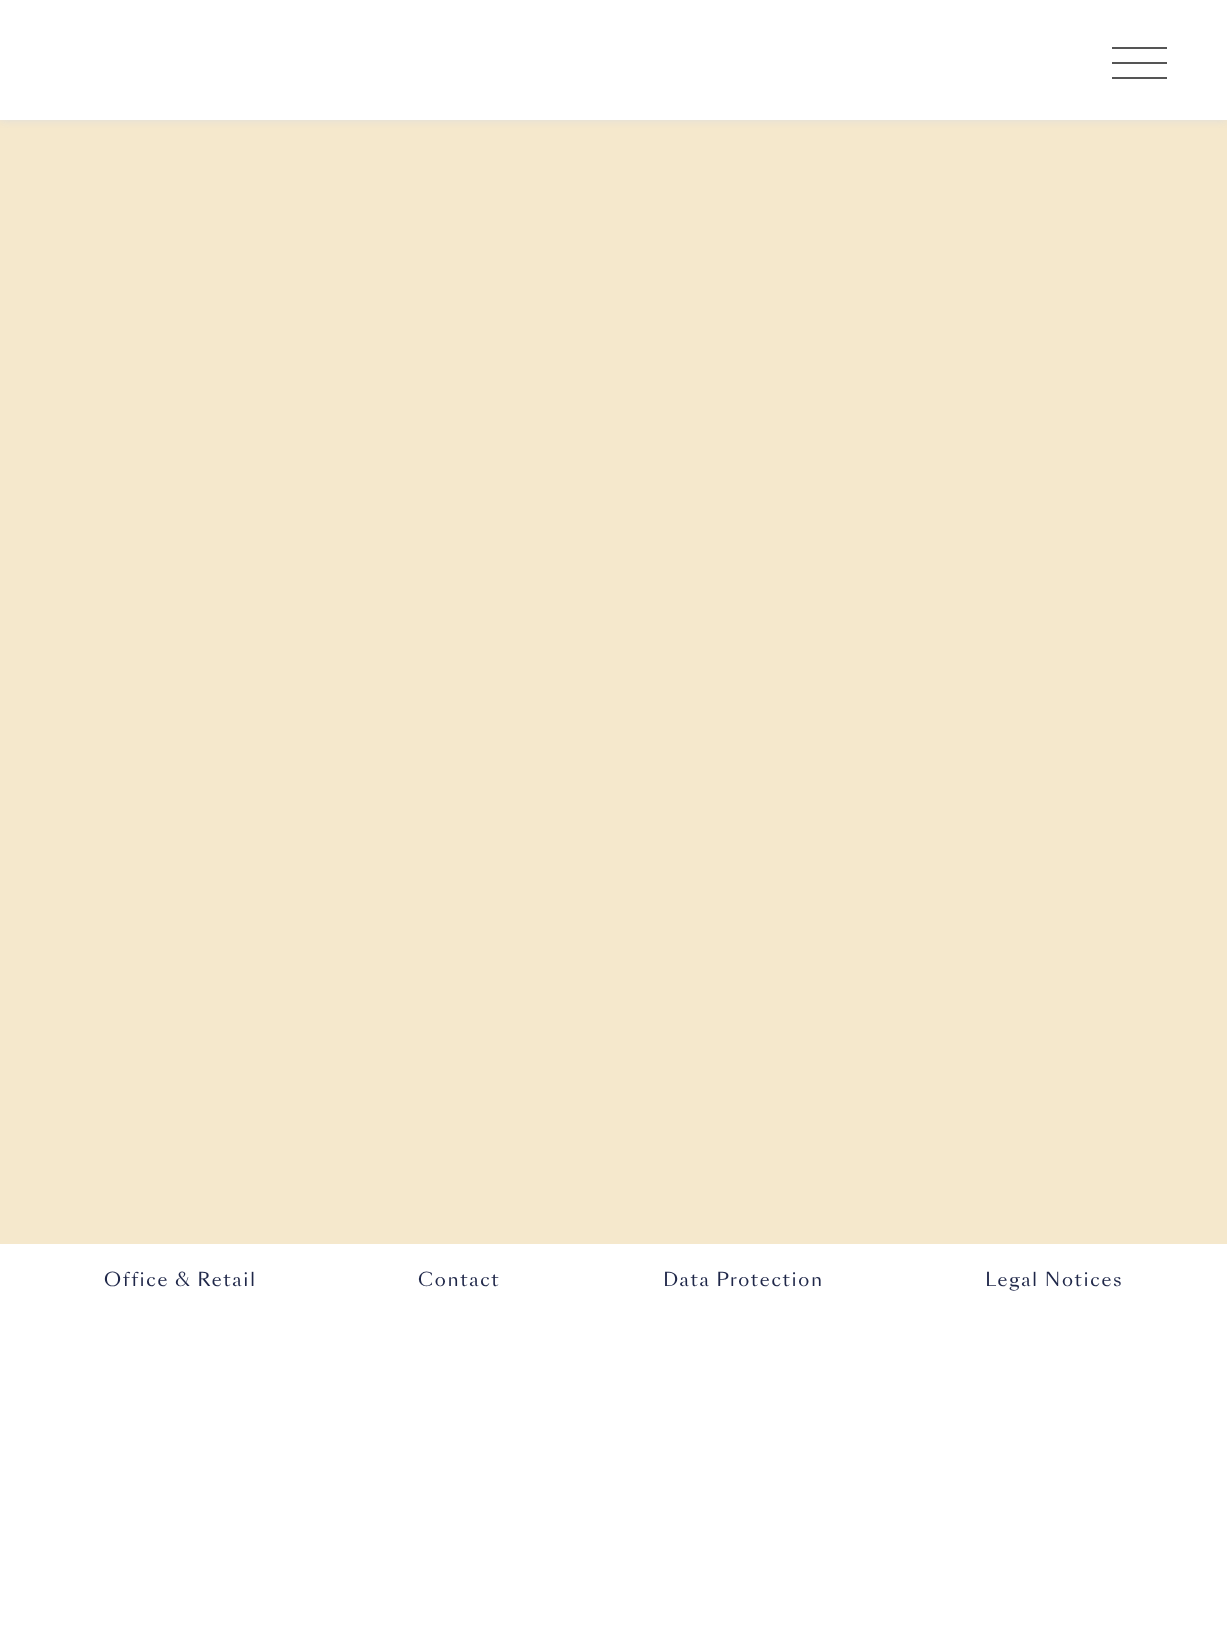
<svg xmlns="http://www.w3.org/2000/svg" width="1227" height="1632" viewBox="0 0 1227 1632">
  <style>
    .t1 { font: 18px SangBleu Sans; letter-spacing: 1.7px; fill: #1f2749; }
  </style>
  <defs>
    <clipPath id="clip1"><rect x="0" y="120" width="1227" height="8"/></clipPath>
  </defs>
  <rect width="100%" height="100%" fill="#fff"/>
  <rect x="0" y="120" width="1227" height="1124" fill="#f5e8cc"/>
  <g clip-path="url(#clip1)">
    <rect x="0" y="0" width="1227" height="120" fill="#ddd" filter="blur(4px)"/>
  </g>
  <rect x="1112" y="47" width="55" height="2" fill="#555"/>
  <rect x="1112" y="62" width="55" height="2" fill="#555"/>
  <rect x="1112" y="77" width="55" height="2" fill="#555"/>
  <text x="104" y="1286" class="t1">Office &amp; Retail</text>
  <text x="418" y="1286" class="t1">Contact</text>
  <text x="663" y="1286" class="t1">Data Protection</text>
  <text x="985" y="1286" class="t1">Legal Notices</text>
</svg>
